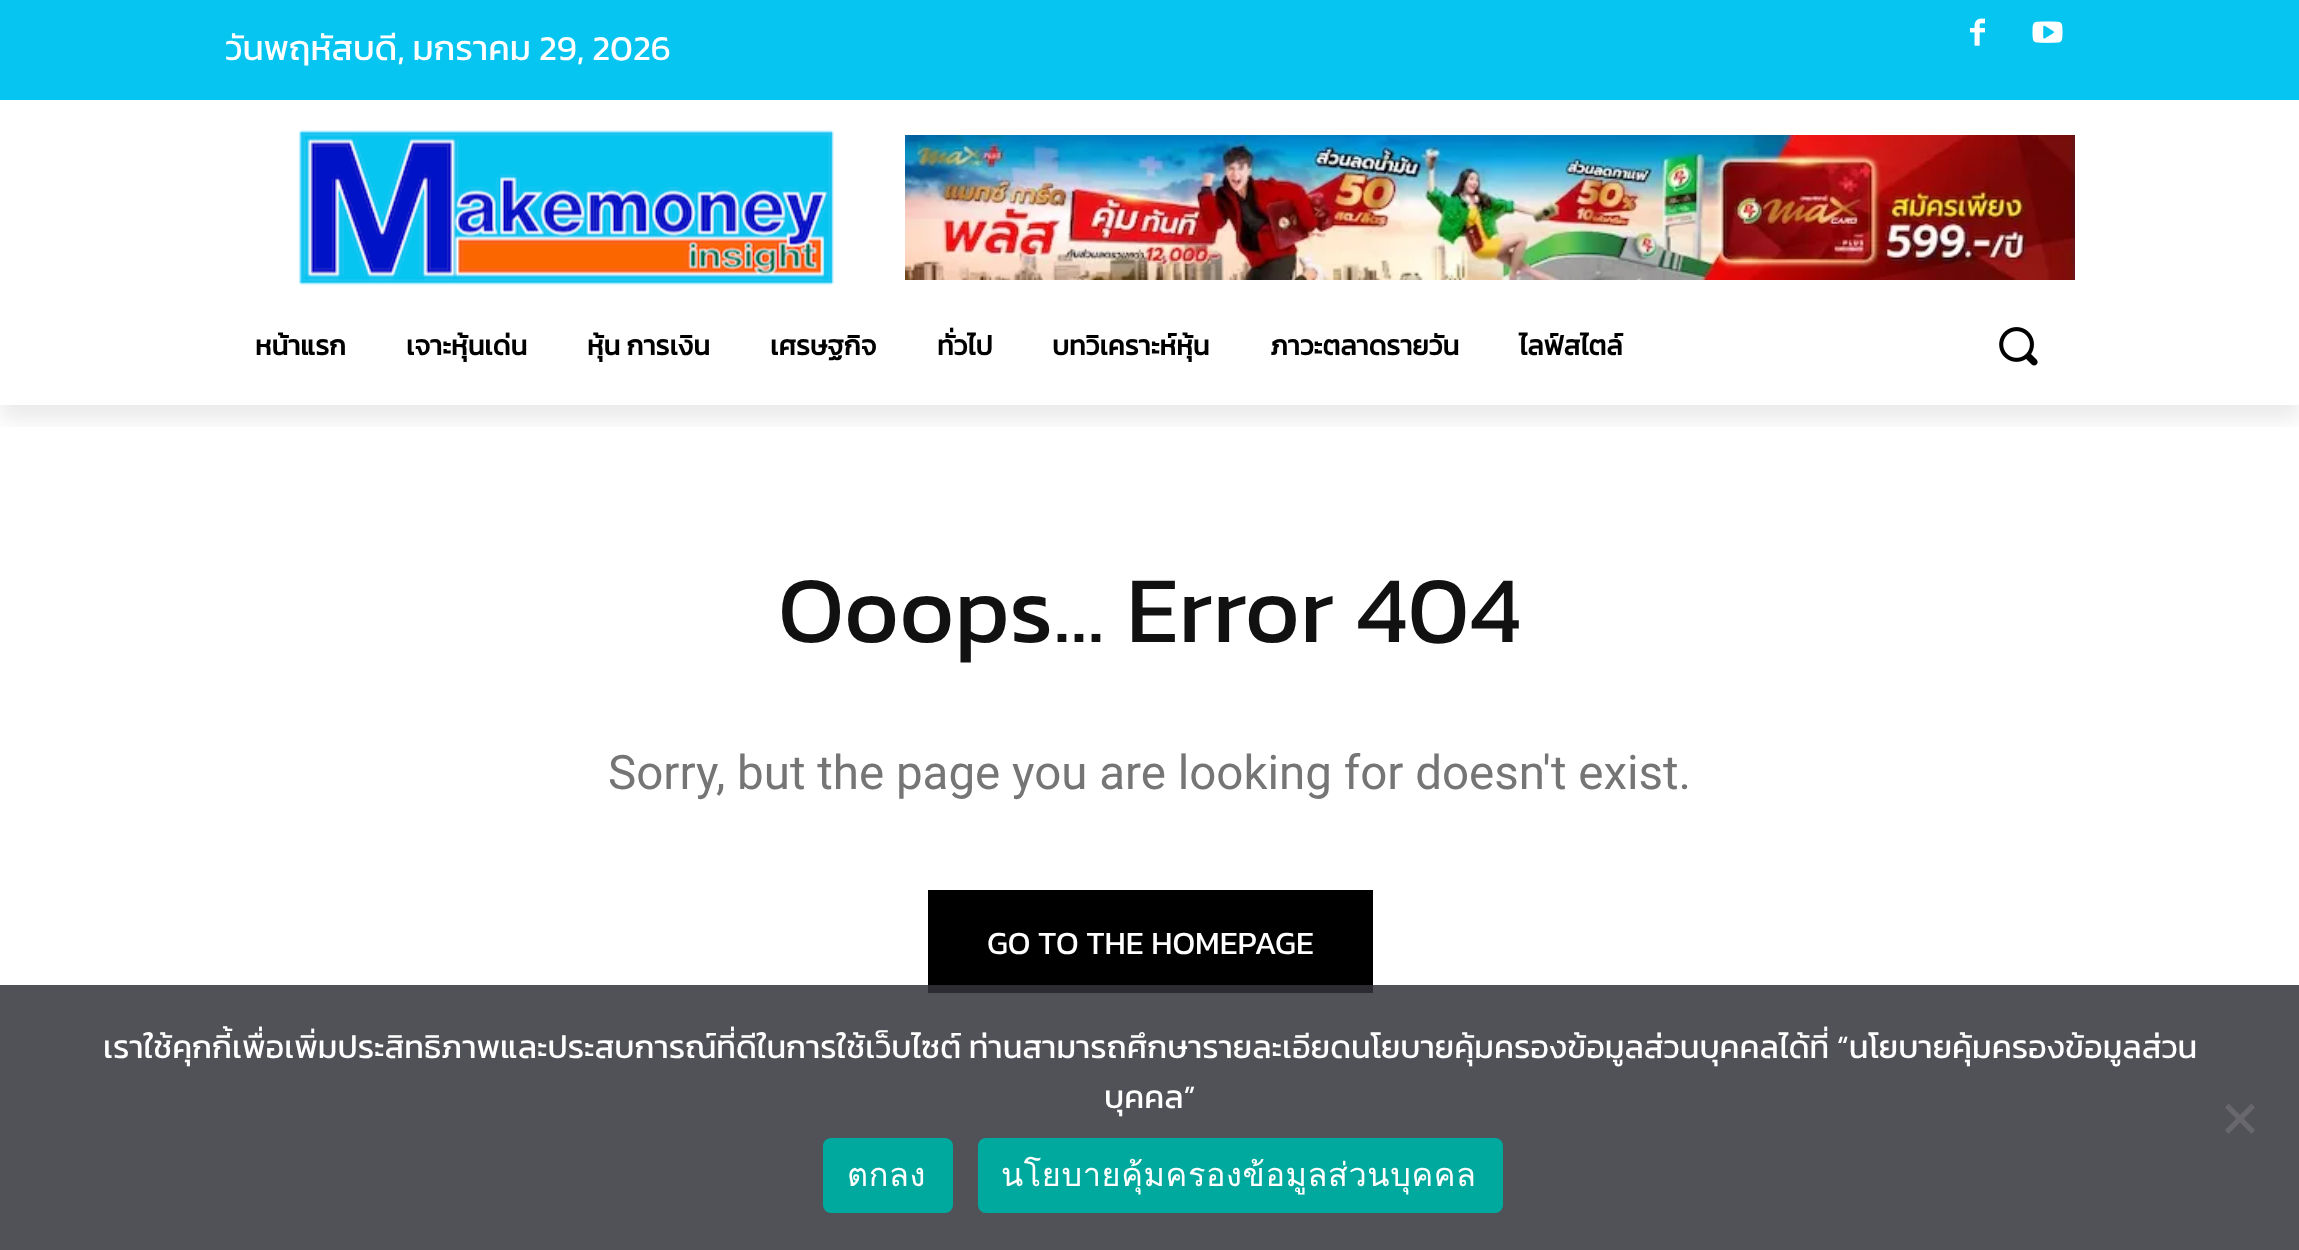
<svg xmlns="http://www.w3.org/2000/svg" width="2299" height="1250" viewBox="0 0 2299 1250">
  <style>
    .t1 { font: 35px Kanit; fill: #fff; }
    .t2 { font: bold 27.5px Kanit; fill: #000; }
    .t3 { font: 95px Kanit; fill: #111; }
    .t4 { font: 47.5px Roboto; fill: #757575; }
    .t5 { font: 32.5px Kanit; fill: #fff; }
    .t6 { font: 32.5px Loma; letter-spacing: 0.6px; fill: #fff; }
  </style>
  <defs>
    <clipPath id="clip1"><rect x="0" y="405" width="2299" height="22"/></clipPath>
  </defs>
  <rect width="100%" height="100%" fill="#fff"/>
  <rect x="0" y="985" width="2299" height="265" fill="#515158"/>
  <rect x="0" y="0" width="2299" height="100" fill="#06c5f1"/>
  <image x="1970" y="18" width="15" height="28" href="images/1.png"/>
  <image x="2032" y="21" width="31" height="22" href="images/2.png"/>
  <image x="298" y="129" width="536" height="157" href="images/3.png"/>
  <image x="905" y="135" width="1170" height="145" href="images/4.png"/>
  <g clip-path="url(#clip1)">
    <rect x="0" y="15" width="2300" height="405" fill="#00000014" filter="blur(10px)"/>
  </g>
  <text x="225" y="60" class="t1">วันพฤหัสบดี, มกราคม 29, 2026</text>
  <text x="255" y="355" class="t2">หน้าแรก</text>
  <text x="406" y="355" class="t2">เจาะหุ้นเด่น</text>
  <text x="587" y="355" class="t2">หุ้น การเงิน</text>
  <text x="770" y="355" class="t2">เศรษฐกิจ</text>
  <text x="937" y="355" class="t2">ทั่วไป</text>
  <text x="1052" y="355" class="t2">บทวิเคราะห์หุ้น</text>
  <text x="1270" y="355" class="t2">ภาวะตลาดรายวัน</text>
  <text x="1519" y="355" class="t2">ไลฟ์สไตล์</text>
  <image x="1999" y="327" width="39" height="39" href="images/5.png"/>
  <text x="778" y="642" class="t3">Ooops... Error 404</text>
  <text x="608" y="789" class="t4">Sorry, but the page you are looking for doesn't exist.</text>
  <rect x="928" y="890" width="445" height="95" fill="#000"/>
  <rect x="928" y="985" width="445" height="8" fill="#2b2b31"/>
  <text x="987" y="954" class="t5">GO TO THE HOMEPAGE</text>
  <text x="103" y="1058" class="t5">เราใช้คุกกี้เพื่อเพิ่มประสิทธิภาพและประสบการณ์ที่ดีในการใช้เว็บไซต์ ท่านสามารถศึกษารายละเอียดนโยบายคุ้มครองข้อมูลส่วนบุคคลได้ที่ “นโยบายคุ้มครองข้อมูลส่วน</text>
  <text x="1104" y="1108" class="t5">บุคคล”</text>
  <path d="M2251.5 1103.5L2255 1107.5L2228.5 1134L2225 1130Z" fill="#68686c"/>
  <path d="M2225 1107.5L2228.5 1103.5L2255 1130L2251.5 1134Z" fill="#68686c"/>
  <rect x="823" y="1138" width="130" height="75" rx="8" fill="#00a99d"/>
  <text x="847" y="1186" class="t6">ตกลง</text>
  <rect x="978" y="1138" width="525" height="75" rx="8" fill="#00a99d"/>
  <text x="1001" y="1186" class="t6">นโยบายคุ้มครองข้อมูลส่วนบุคคล</text>
</svg>
